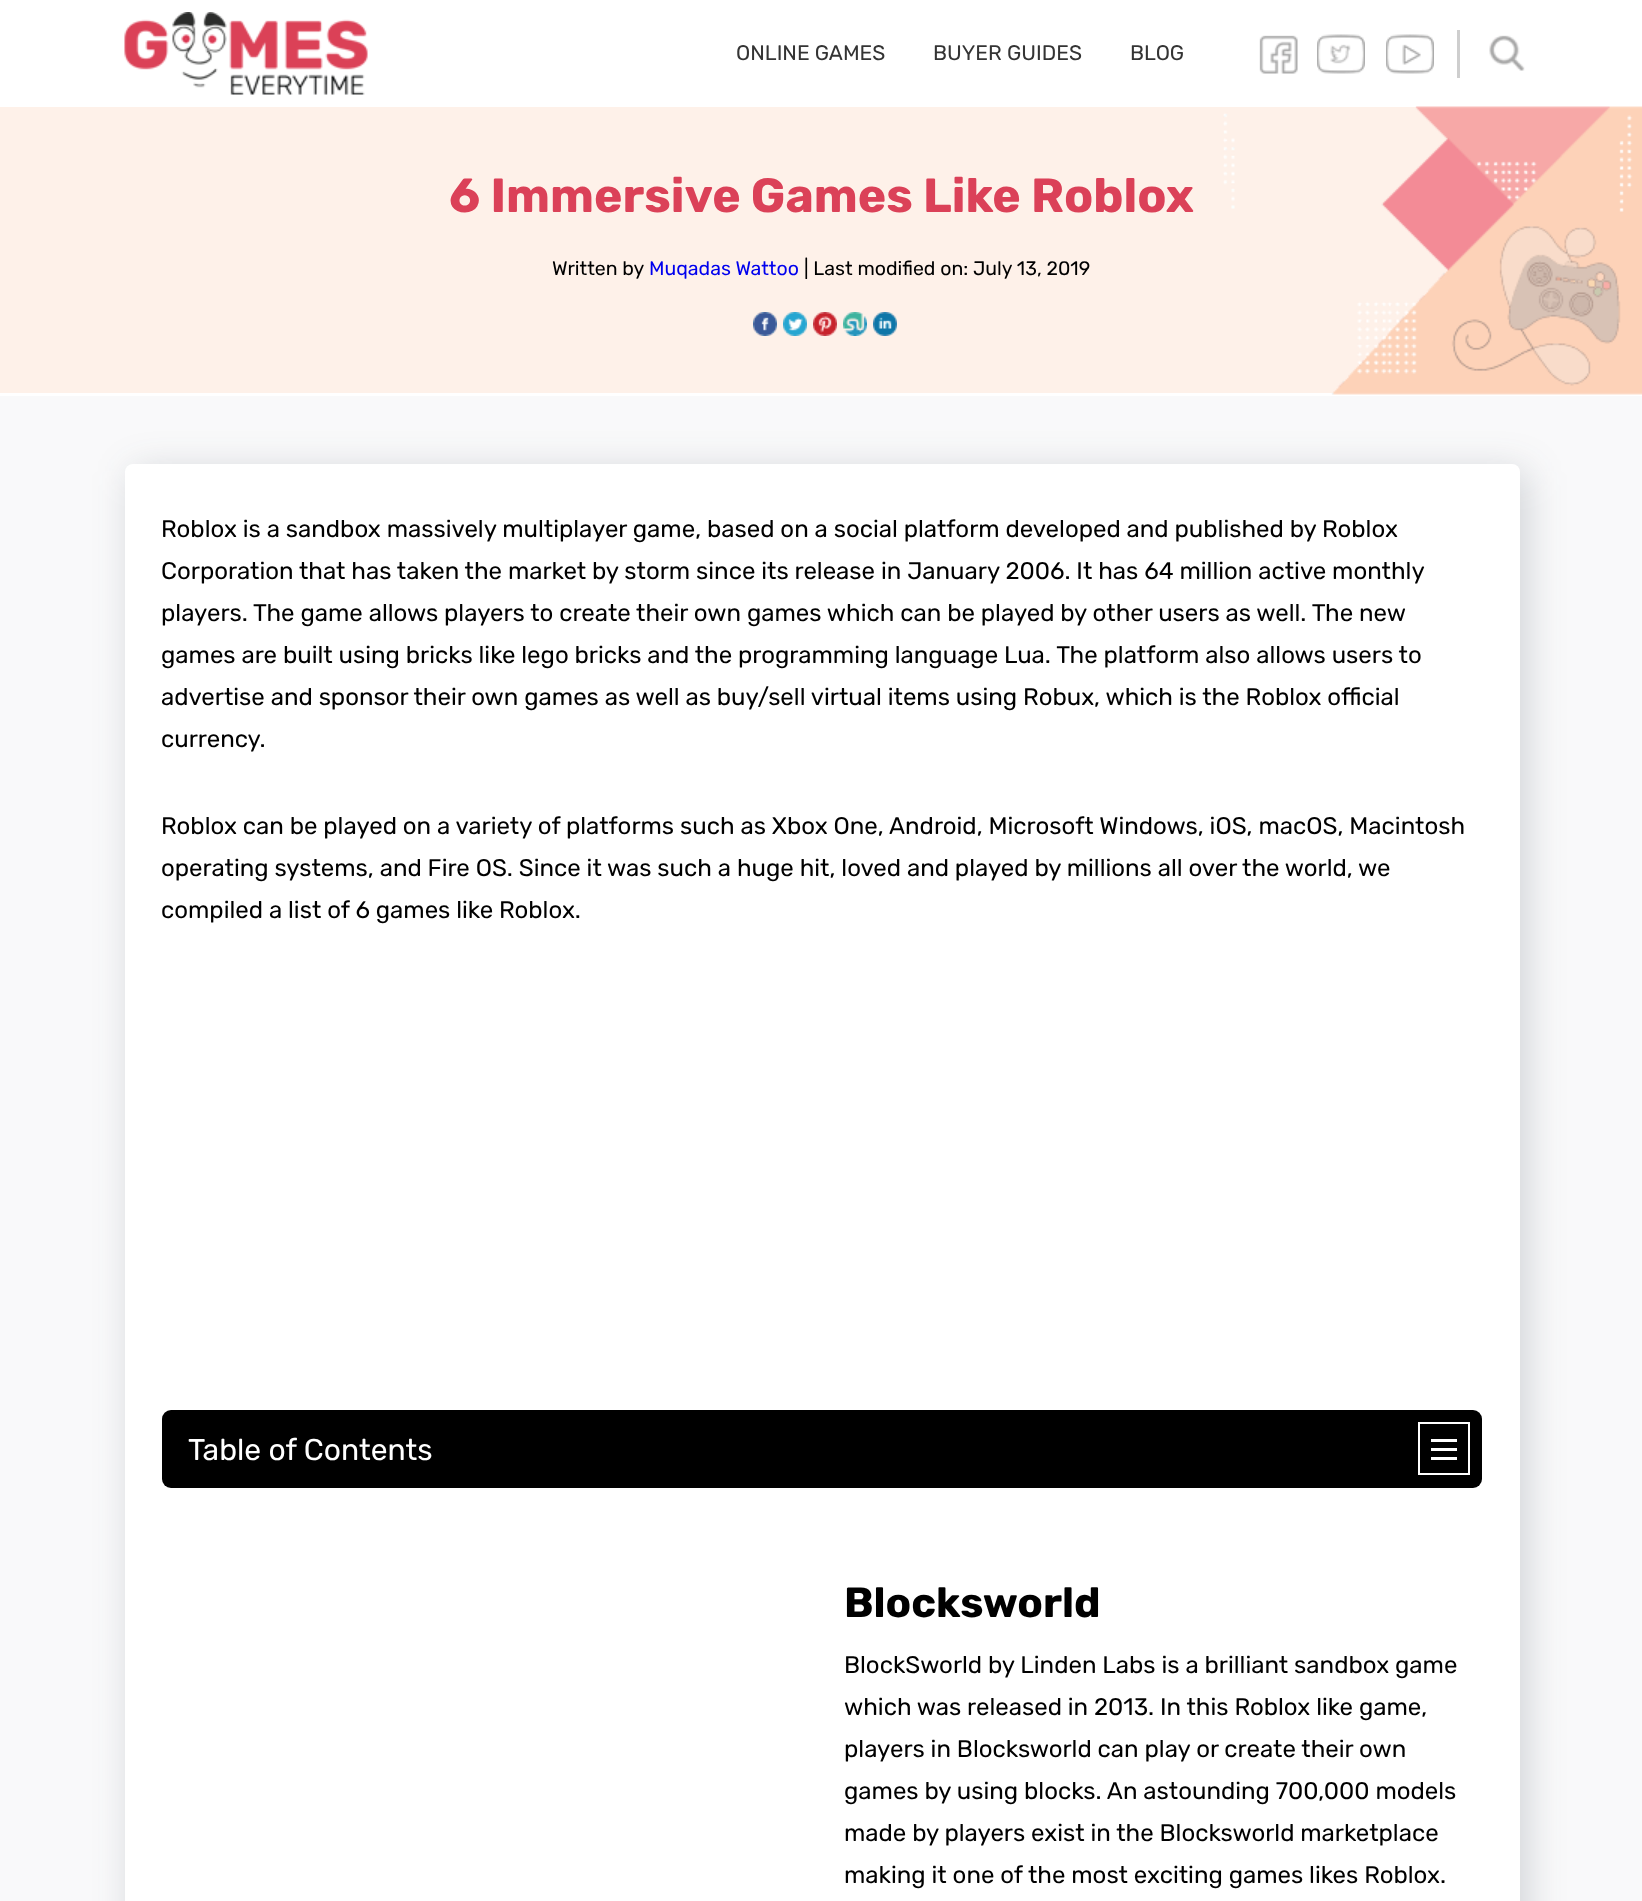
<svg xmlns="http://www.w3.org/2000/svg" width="1642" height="1901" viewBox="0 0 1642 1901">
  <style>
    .t1 { font: 21px Rubik; fill: #343434; }
    .t2 { font: bold 48px Rubik; fill: #db4158; }
    .t3 { font: 19.5px Rubik; fill: #000; }
    .t4 { font: 19.5px Rubik; fill: #00e; }
    .t5 { font: 24px Rubik; fill: #000; }
    .t6 { font: 30px Rubik; fill: #fff; }
    .t7 { font: bold 42px Rubik; fill: #000; }
  </style>
  <rect width="100%" height="100%" fill="#f9f9fa"/>
  <rect x="0" y="0" width="1642" height="107" fill="#fff"/>
  <image x="124" y="12" width="244" height="83" href="images/1.png"/>
  <text x="736" y="60" class="t1">ONLINE GAMES</text>
  <text x="933" y="60" class="t1">BUYER GUIDES</text>
  <text x="1130" y="60" class="t1">BLOG</text>
  <image x="1259" y="35" width="39" height="39" href="images/2.png"/>
  <image x="1317" y="34" width="48" height="40" href="images/3.png"/>
  <image x="1386" y="34" width="48" height="40" href="images/4.png"/>
  <rect x="1457" y="30" width="3" height="48" fill="#cecece"/>
  <image x="1489" y="35" width="36" height="36" href="images/5.png"/>
  <rect x="0" y="107" width="1642" height="286" fill="#fef1e9"/>
  <rect x="0" y="393" width="1642" height="3" fill="#fff"/>
  <text x="449" y="212" class="t2">6 Immersive Games Like Roblox</text>
  <text x="552" y="275" class="t3">Written by</text>
  <text x="649" y="275" class="t4">Muqadas Wattoo</text>
  <text x="804" y="275" class="t3">| Last modified on: July 13, 2019</text>
  <image x="753" y="312" width="24" height="24" href="images/6.png"/>
  <image x="783" y="312" width="24" height="24" href="images/7.png"/>
  <image x="813" y="312" width="24" height="24" href="images/8.png"/>
  <image x="843" y="312" width="24" height="24" href="images/9.png"/>
  <image x="873" y="312" width="24" height="24" href="images/10.png"/>
  <image x="1223" y="106" width="419" height="289" href="images/11.png"/>
  <rect x="132" y="471" width="1395" height="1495" rx="8" fill="#2e3d4933" filter="blur(19px)"/>
  <rect x="125" y="464" width="1395" height="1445" rx="8" fill="#fff"/>
  <text x="161" y="537" class="t5">Roblox is a sandbox massively multiplayer game, based on a social platform developed and published by Roblox</text>
  <text x="161" y="579" class="t5">Corporation that has taken the market by storm since its release in January 2006. It has 64 million active monthly</text>
  <text x="161" y="621" class="t5">players. The game allows players to create their own games which can be played by other users as well. The new</text>
  <text x="161" y="663" class="t5">games are built using bricks like lego bricks and the programming language Lua. The platform also allows users to</text>
  <text x="161" y="705" class="t5">advertise and sponsor their own games as well as buy/sell virtual items using Robux, which is the Roblox official</text>
  <text x="161" y="747" class="t5">currency.</text>
  <text x="161" y="834" class="t5">Roblox can be played on a variety of platforms such as Xbox One, Android, Microsoft Windows, iOS, macOS, Macintosh</text>
  <text x="161" y="876" class="t5">operating systems, and Fire OS. Since it was such a huge hit, loved and played by millions all over the world, we</text>
  <text x="161" y="918" class="t5">compiled a list of 6 games like Roblox.</text>
  <rect x="162" y="1410" width="1320" height="78" rx="9" fill="#000"/>
  <text x="188" y="1460" class="t6">Table of Contents</text>
  <rect x="1419" y="1423" width="50" height="51" fill="none" stroke="#fff" stroke-width="2"/>
  <rect x="1431" y="1448" width="26" height="3" fill="#fff"/>
  <rect x="1431" y="1439" width="26" height="3" fill="#fff"/>
  <rect x="1431" y="1457" width="26" height="3" fill="#fff"/>
  <text x="844" y="1617" class="t7">Blocksworld</text>
  <text x="844" y="1673" class="t5">BlockSworld by Linden Labs is a brilliant sandbox game</text>
  <text x="844" y="1715" class="t5">which was released in 2013. In this Roblox like game,</text>
  <text x="844" y="1757" class="t5">players in Blocksworld can play or create their own</text>
  <text x="844" y="1799" class="t5">games by using blocks. An astounding 700,000 models</text>
  <text x="844" y="1841" class="t5">made by players exist in the Blocksworld marketplace</text>
  <text x="844" y="1883" class="t5">making it one of the most exciting games likes Roblox.</text>
</svg>
